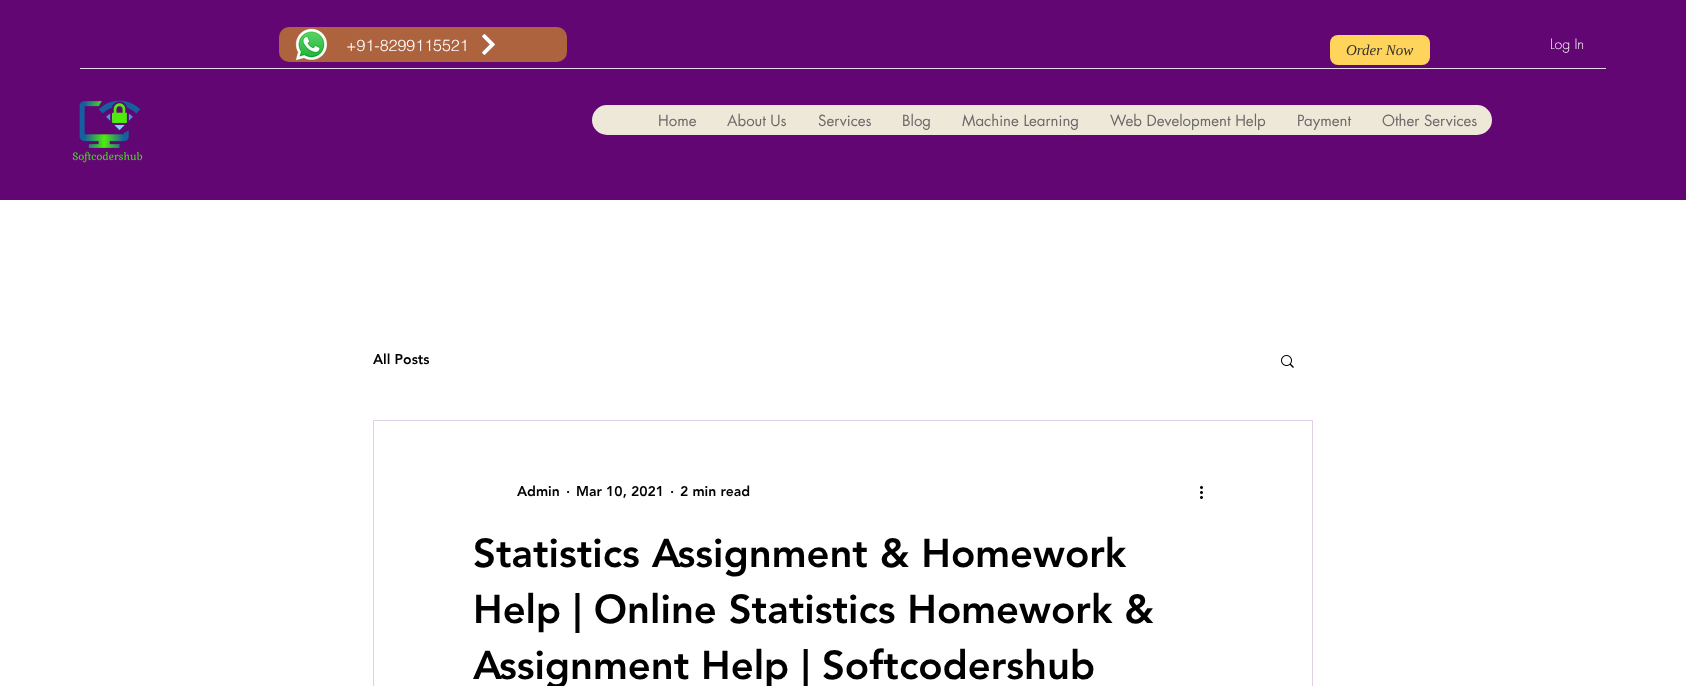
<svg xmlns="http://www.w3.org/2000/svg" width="1686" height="686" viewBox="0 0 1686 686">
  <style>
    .t1 { font: 300 16px helvetica; fill: #fff; }
    .t2 { font: italic 15px Liberation Serif; fill: #353131; }
    .t3 { font: 300 14px futura; fill: #fff; }
    .t4 { font: 15px futura; fill: #696969; }
    .t5 { font: 900 14px 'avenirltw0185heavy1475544'; fill: #000; }
    .t6 { font: 900 40px 'avenirltw0185heavy1475544'; fill: #000; }
  </style>
  <rect width="100%" height="100%" fill="#fff"/>
  <rect x="0" y="0" width="1686" height="200" fill="#620674"/>
  <rect x="279" y="27" width="288" height="35" rx="10" fill="#ae633f"/>
  <image x="295" y="28" width="32" height="33" href="images/1.png"/>
  <text x="346" y="51" class="t1">+91-8299115521</text>
  <image x="482" y="34" width="13" height="21" href="images/2.png"/>
  <rect x="1330" y="35" width="100" height="30" rx="8" fill="#ffd45a"/>
  <text x="1346" y="55" class="t2">Order Now</text>
  <text x="1550" y="49" class="t3">Log In</text>
  <rect x="80" y="68" width="1526" height="1" fill="#e7daea"/>
  <image x="72" y="100" width="71" height="63" href="images/3.png"/>
  <rect x="592" y="105" width="900" height="30" rx="15" fill="#eee8d8"/>
  <text x="658" y="126" class="t4">Home</text>
  <text x="727" y="126" class="t4">About Us</text>
  <text x="818" y="126" class="t4">Services</text>
  <text x="902" y="126" class="t4">Blog</text>
  <text x="962" y="126" class="t4">Machine Learning</text>
  <text x="1110" y="126" class="t4">Web Development Help</text>
  <text x="1297" y="126" class="t4">Payment</text>
  <text x="1382" y="126" class="t4">Other Services</text>
  <text x="373" y="364" class="t5">All Posts</text>
  <image x="1281" y="355" width="13" height="13" href="images/4.png"/>
  <rect x="373.5" y="420.5" width="939" height="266" fill="none" stroke="#e2d1e6"/>
  <text x="517" y="496" class="t5">Admin</text>
  <text x="566" y="496" class="t5">·</text>
  <text x="576" y="496" class="t5">Mar 10, 2021</text>
  <text x="670" y="496" class="t5">·</text>
  <text x="680" y="496" class="t5">2 min read</text>
  <image x="1200" y="486" width="3" height="13" href="images/5.png"/>
  <text x="473" y="567" class="t6">Statistics Assignment &amp; Homework</text>
  <text x="473" y="623" class="t6">Help | Online Statistics Homework &amp;</text>
  <text x="473" y="679" class="t6">Assignment Help | Softcodershub</text>
</svg>
